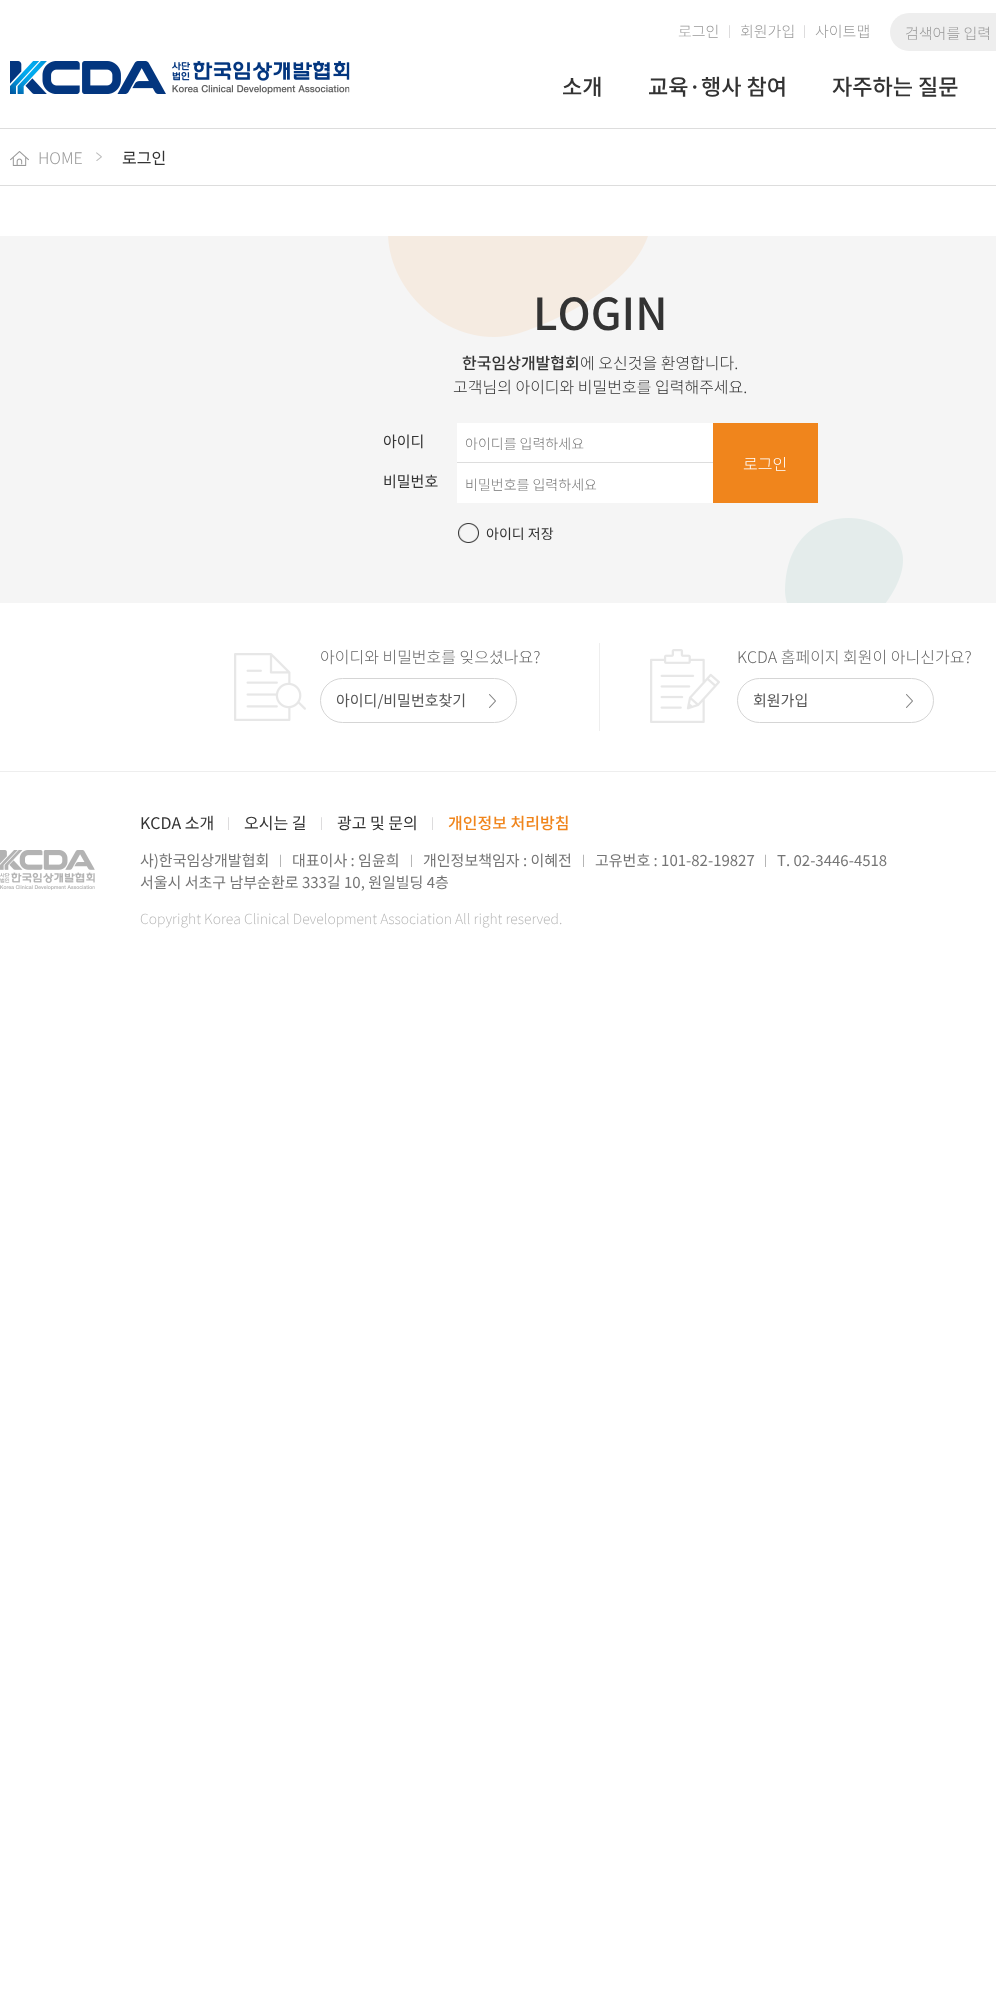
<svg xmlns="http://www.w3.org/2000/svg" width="996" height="1989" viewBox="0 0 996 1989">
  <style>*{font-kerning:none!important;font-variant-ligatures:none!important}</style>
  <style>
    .t1 { font: 300 15px Noto Sans KR; fill: #999; }
    .t2 { font: 500 22px Noto Sans KR; fill: #333; }
    .t3 { font: 300 16px Noto Sans KR; fill: #999; }
    .t4 { font: 16px Noto Sans KR; fill: #333; }
    .t5 { font: 500 44px Noto Sans KR; fill: #333; }
    .t6 { font: 500 16px Noto Sans KR; fill: #333; }
    .t7 { font: 300 16px Noto Sans KR; fill: #333; }
    .t8 { font: 15px Noto Sans KR; fill: #333; }
    .t9 { font: 300 14px Noto Sans KR; fill: #757575; }
    .t10 { font: 300 16px Noto Sans KR; fill: #fff; }
    .t11 { font: 14px Noto Sans KR; fill: #333; }
    .t12 { font: 300 16px Noto Sans KR; fill: #666; }
    .t13 { font: 15px Noto Sans KR; fill: #555; }
    .t14 { font: 500 16px Noto Sans KR; fill: #f0851c; }
    .t15 { font: 15px Noto Sans KR; fill: #757575; }
    .t16 { font: 11px Noto Sans KR; fill: #999; }
    .t17 { font: 200 14px Noto Sans KR; fill: #b4b4b4; }
  </style>
  <rect width="100%" height="100%" fill="#fff"/>
  <image x="729" y="25" width="1" height="13" href="images/1.png"/>
  <text x="678" y="37" class="t1">로그인</text>
  <image x="804" y="25" width="1" height="13" href="images/1.png"/>
  <text x="740" y="37" class="t1">회원가입</text>
  <text x="815" y="37" class="t1">사이트맵</text>
  <path d="M909 13H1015V51H909C898.5 51 890 42.5 890 32C890 21.5 898.5 13 909 13Z" fill="#eee"/>
  <text x="905" y="39" class="t1">검색어를 입력</text>
  <image x="10" y="61" width="340" height="33" href="images/2.png"/>
  <text x="562" y="95" class="t2">소개</text>
  <text x="648" y="95" class="t2">교육·행사 참여</text>
  <text x="832" y="95" class="t2">자주하는 질문</text>
  <rect x="0" y="128" width="996" height="1" fill="#ddd"/>
  <rect x="0" y="185" width="996" height="1" fill="#ddd"/>
  <image x="96" y="152" width="6" height="9" href="images/3.png"/>
  <image x="10" y="151" width="19" height="15" href="images/4.png"/>
  <text x="38" y="164" class="t3">HOME</text>
  <text x="122" y="164" class="t4">로그인</text>
  <rect x="0" y="236" width="996" height="367" fill="#f5f5f5"/>
  <image x="388" y="236" width="515" height="367" href="images/5.png"/>
  <text x="533" y="330" class="t5">LOGIN</text>
  <text x="462" y="369" class="t6">한국임상개발협회</text>
  <text x="580" y="369" class="t7">에 오신것을 환영합니다.</text>
  <text x="453" y="393" class="t7">고객님의 아이디와 비밀번호를 입력해주세요.</text>
  <text x="383" y="447" class="t8">아이디</text>
  <rect x="457" y="423" width="256" height="39" fill="#fff"/>
  <rect x="457" y="462" width="256" height="1" fill="#ddd"/>
  <text x="465" y="449" class="t9">아이디를 입력하세요</text>
  <text x="383" y="487" class="t8">비밀번호</text>
  <rect x="457" y="463" width="256" height="40" fill="#fff"/>
  <text x="465" y="490" class="t9">비밀번호를 입력하세요</text>
  <rect x="713" y="423" width="105" height="80" fill="#f0851c"/>
  <text x="743" y="470" class="t10">로그인</text>
  <image x="458" y="523" width="21" height="20" href="images/6.png"/>
  <text x="486" y="539" class="t11">아이디 저장</text>
  <image x="234" y="653" width="72" height="68" href="images/7.png"/>
  <rect x="599" y="643" width="1" height="88" fill="#eee"/>
  <text x="320" y="663" class="t12">아이디와 비밀번호를 잊으셨나요?</text>
  <image x="489" y="694" width="7" height="14" href="images/8.png"/>
  <rect x="320.5" y="678.5" width="196" height="44" rx="22" fill="none" stroke="#d5d5d5"/>
  <text x="336" y="706" class="t13">아이디/비밀번호찾기</text>
  <image x="650" y="649" width="70" height="74" href="images/9.png"/>
  <text x="737" y="663" class="t12">KCDA 홈페이지 회원이 아니신가요?</text>
  <image x="906" y="694" width="7" height="14" href="images/8.png"/>
  <rect x="737.5" y="678.5" width="196" height="44" rx="22" fill="none" stroke="#d5d5d5"/>
  <text x="753" y="706" class="t13">회원가입</text>
  <rect x="0" y="771" width="996" height="1" fill="#eee"/>
  <image x="0" y="850" width="95" height="40" href="images/10.png"/>
  <image x="228" y="817" width="1" height="13" href="images/1.png"/>
  <text x="140" y="829" class="t4">KCDA 소개</text>
  <image x="321" y="817" width="1" height="13" href="images/1.png"/>
  <text x="244" y="829" class="t4">오시는 길</text>
  <image x="432" y="817" width="1" height="13" href="images/1.png"/>
  <text x="337" y="829" class="t4">광고 및 문의</text>
  <text x="448" y="829" class="t14">개인정보 처리방침</text>
  <text x="140" y="866" class="t15">사)한국임상개발협회</text>
  <text x="279" y="864" class="t16">|</text>
  <text x="292" y="866" class="t15">대표이사 : 임윤희</text>
  <text x="410" y="864" class="t16">|</text>
  <text x="423" y="866" class="t15">개인정보책임자 : 이혜전</text>
  <text x="582" y="864" class="t16">|</text>
  <text x="595" y="866" class="t15">고유번호 : 101-82-19827</text>
  <text x="764" y="864" class="t16">|</text>
  <text x="777" y="866" class="t15">T. 02-3446-4518</text>
  <text x="140" y="888" class="t15">서울시 서초구 남부순환로 333길 10, 원일빌딩 4층</text>
  <text x="140" y="924" class="t17">Copyright Korea Clinical Development Association All right reserved.</text>
</svg>
